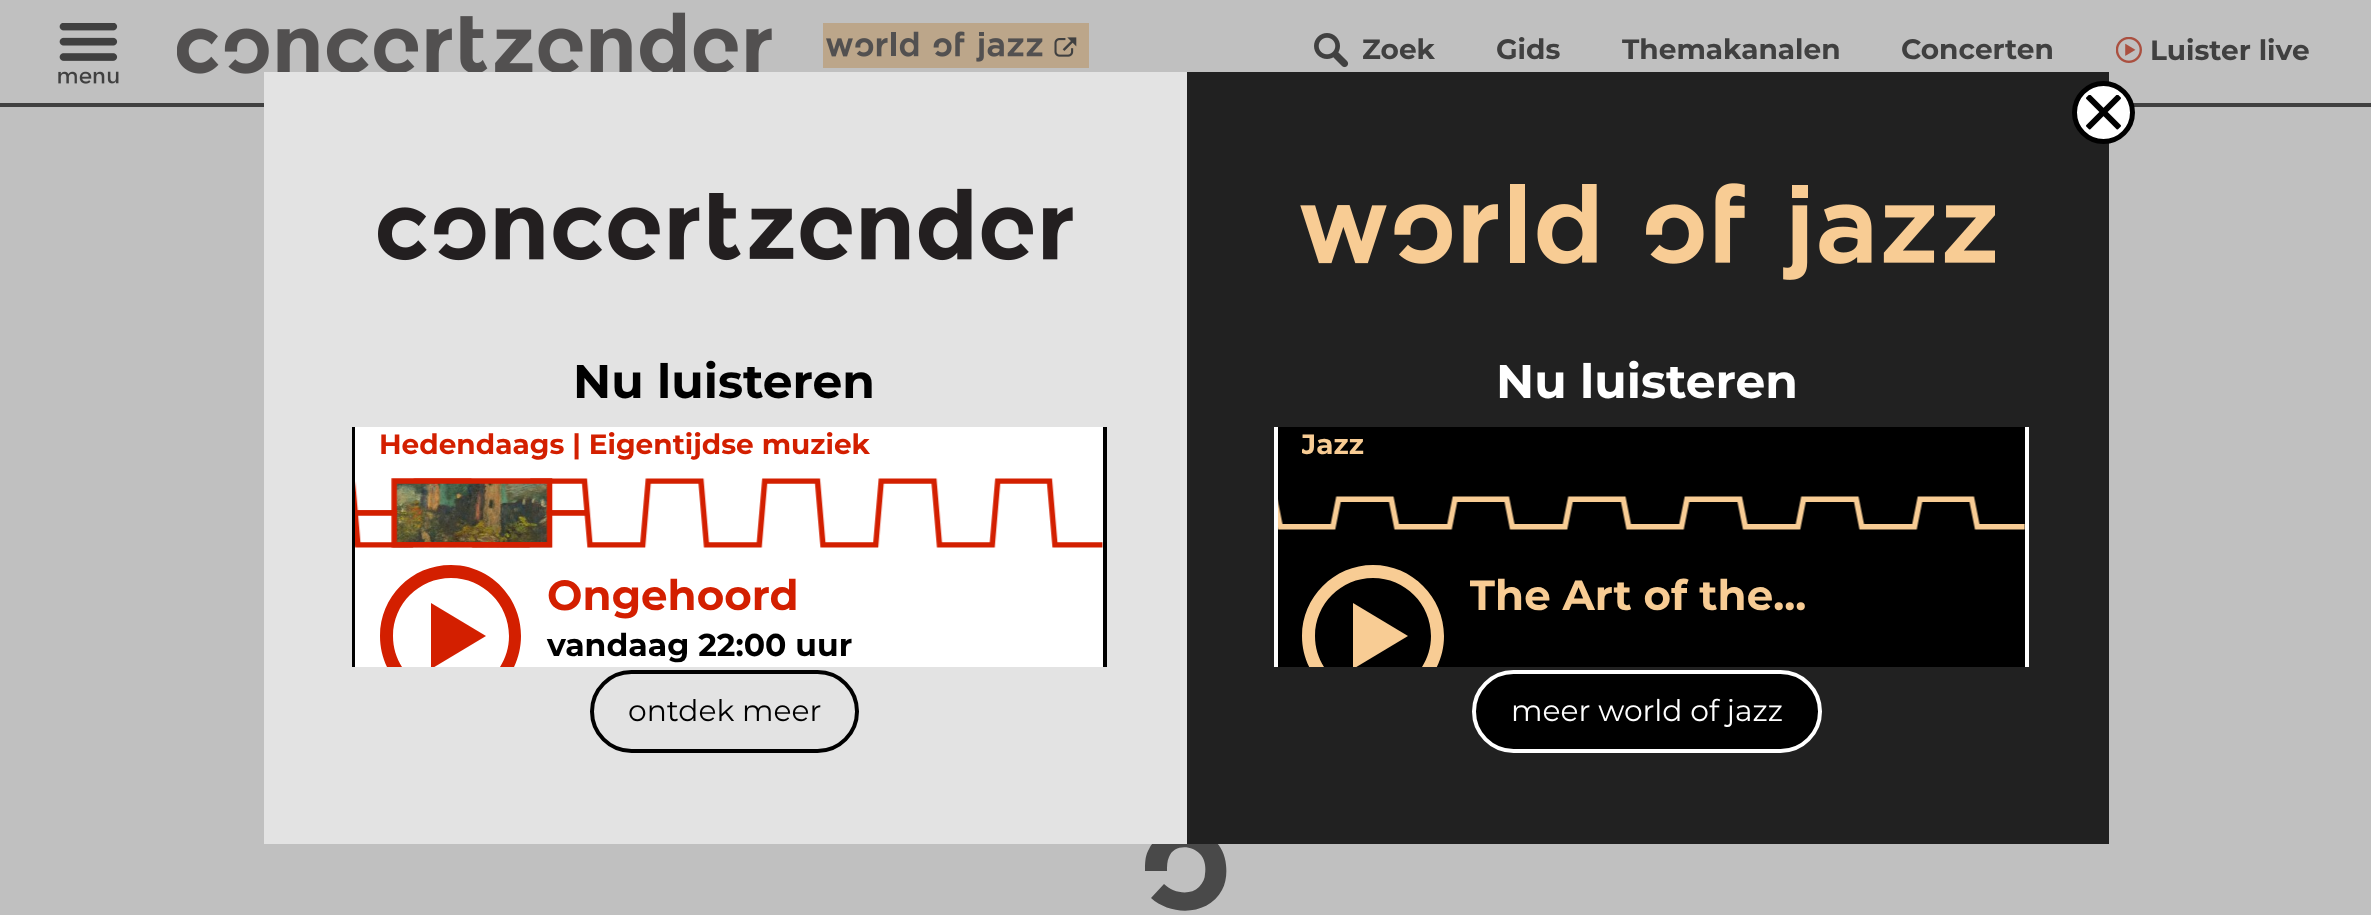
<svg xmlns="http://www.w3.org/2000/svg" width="2371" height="915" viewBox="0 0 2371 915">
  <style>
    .t1 { font: bold 28px Montserrat; fill: #404040; }
    .t2 { font: bold 47.25px Montserrat; fill: #000; }
    .t3 { font: bold 28px Montserrat; fill: #d31f00; }
    .t4 { font: bold 42px Montserrat; fill: #d31f00; }
    .t5 { font: bold 31.5px Montserrat; fill: #000; }
    .t6 { font: 29.75px Montserrat; fill: #000; }
    .t7 { font: bold 47.25px Montserrat; fill: #fff; }
    .t8 { font: bold 28px Montserrat; fill: #f8cc94; }
    .t9 { font: bold 42px Montserrat; fill: #f8cc94; }
    .t10 { font: 29.75px Montserrat; fill: #fff; }
  </style>
  <defs>
    <clipPath id="clip1"><rect x="380" y="565" width="143" height="102"/></clipPath>
    <clipPath id="clip2"><rect x="1302" y="427" width="653" height="35"/></clipPath>
    <clipPath id="clip3"><rect x="1302" y="565" width="144" height="102"/></clipPath>
    <clipPath id="clip4"><rect x="1470" y="565" width="431" height="62"/></clipPath>
  </defs>
  <rect width="100%" height="100%" fill="#c0c0c0"/>
  <rect x="0" y="103" width="2371" height="4" fill="#404040"/>
  <image x="58" y="23" width="61" height="61" href="images/1.png"/>
  <image x="177" y="12" width="595" height="62" href="images/2.png"/>
  <rect x="823" y="23" width="266" height="45" fill="#bca68a"/>
  <image x="826" y="31" width="251" height="31" href="images/3.png"/>
  <image x="1314" y="33" width="35" height="35" href="images/4.png"/>
  <text x="1362" y="59" class="t1">Zoek</text>
  <text x="1496" y="59" class="t1">Gids</text>
  <text x="1622" y="59" class="t1">Themakanalen</text>
  <text x="1901" y="59" class="t1">Concerten</text>
  <image x="2116" y="37" width="26" height="26" href="images/5.png"/>
  <text x="2150" y="60" class="t1">Luister live</text>
  <path d="M1214 840C1195 823 1159 825 1148 851C1145 857 1145 864 1145 871H1167C1167 866 1167 861 1169 857C1174 844 1192 845 1200 854C1205 859 1206 867 1205 874C1205 878 1203 883 1199 887C1190 896 1173 893 1164 884L1151 898C1171 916 1208 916 1222 890C1226 883 1227 874 1226 865C1225 855 1221 846 1214 840Z" fill="#494949"/>
  <rect x="1187" y="72" width="922" height="772" fill="#212121"/>
  <circle cx="2103.5" cy="112.5" r="29" fill="#fff" stroke="#000" stroke-width="5"/>
  <image x="2086" y="95" width="35" height="35" href="images/6.png"/>
  <rect x="264" y="72" width="923" height="772" fill="#e3e3e3"/>
  <image x="378" y="188" width="695" height="73" href="images/7.png"/>
  <text x="573" y="398" class="t2">Nu luisteren</text>
  <rect x="1103" y="427" width="4" height="240" fill="#000"/>
  <rect x="352" y="427" width="3" height="240" fill="#000"/>
  <rect x="355" y="427" width="748" height="240" fill="#fff"/>
  <text x="379" y="454" class="t3">Hedendaags | Eigentijdse muziek</text>
  <image x="355" y="478" width="748" height="70" href="images/8.png"/>
  <image x="357" y="478" width="229" height="70" href="images/9.png"/>
  <g clip-path="url(#clip1)">
    <path d="M431 669V603L486 636Z" fill="#d31f00"/>
    <path d="M451 578C483 578 509 604 509 636C509 668 483 694 451 694C419 694 393 668 393 636C393 604 419 578 451 578M451 565C411 565 380 597 380 636C380 675 411 707 451 707C490 707 521 675 521 636C521 597 490 565 451 565Z" fill="#d31f00"/>
  </g>
  <text x="547" y="610" class="t4">Ongehoord</text>
  <text x="547" y="656" class="t5">vandaag 22:00 uur</text>
  <rect x="592" y="672" width="265" height="79" rx="39.5" fill="none" stroke="#000" stroke-width="4"/>
  <text x="628" y="721" class="t6">ontdek meer</text>
  <image x="1300" y="183" width="695" height="97" href="images/10.png"/>
  <text x="1496" y="398" class="t7">Nu luisteren</text>
  <rect x="2025" y="427" width="4" height="240" fill="#fff"/>
  <rect x="1274" y="427" width="4" height="240" fill="#fff"/>
  <rect x="1278" y="427" width="747" height="240" fill="#000"/>
  <g clip-path="url(#clip2)">
    <text x="1301" y="454" class="t8">Jazz</text>
  </g>
  <image x="1278" y="496" width="747" height="34" href="images/11.png"/>
  <g clip-path="url(#clip3)">
    <path d="M1353 669V603L1408 636Z" fill="#f8cc94"/>
    <path d="M1373 578C1405 578 1431 604 1431 636C1431 668 1405 694 1373 694C1341 694 1315 668 1315 636C1315 604 1341 578 1373 578M1373 565C1334 565 1302 597 1302 636C1302 675 1334 707 1373 707C1412 707 1444 675 1444 636C1444 597 1412 565 1373 565Z" fill="#f8cc94"/>
  </g>
  <g clip-path="url(#clip4)">
    <text x="1469" y="610" class="t9">The Art of the...</text>
  </g>
  <rect x="1474" y="672" width="346" height="79" rx="39.5" fill="#000" stroke="#fff" stroke-width="4"/>
  <text x="1511" y="721" class="t10">meer world of jazz</text>
</svg>
